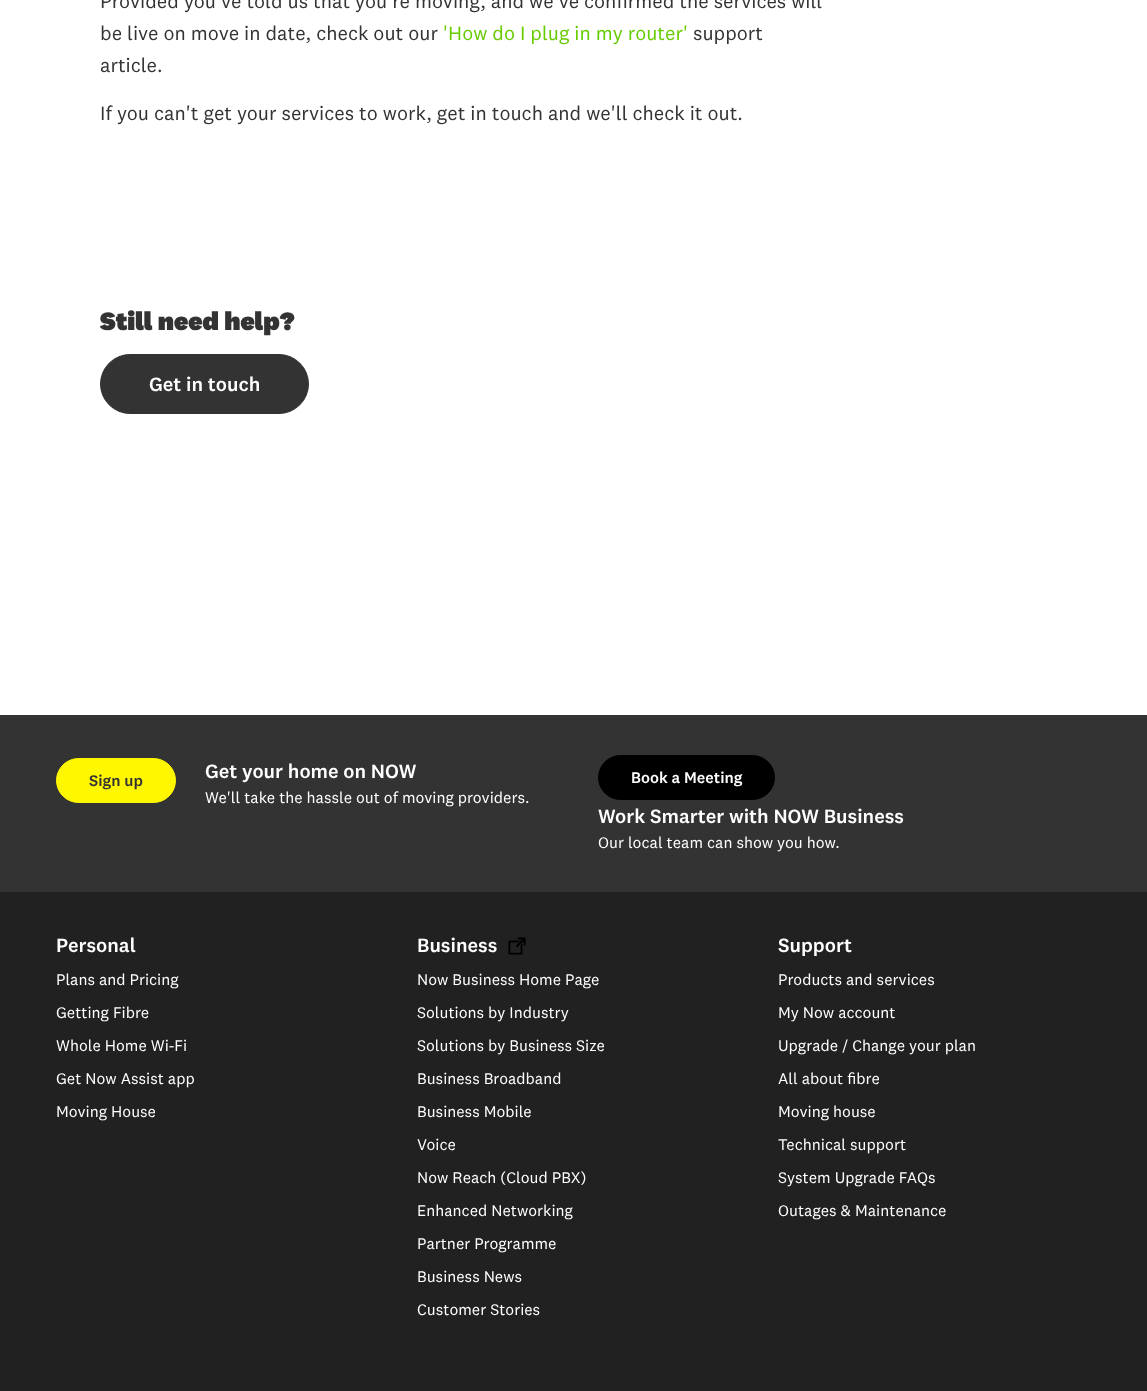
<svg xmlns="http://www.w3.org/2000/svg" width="1147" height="1391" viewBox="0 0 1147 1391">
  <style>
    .t1 { font: 20px 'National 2'; fill: #333; }
    .t2 { font: 20px 'National 2'; fill: #6c0; }
    .t3 { font: 900 26px 'National 2'; fill: #333; }
    .t4 { font: 500 20px 'National 2'; fill: #fff; }
    .t5 { font: 500 16px 'National 2'; fill: #333; }
    .t6 { font: 16px 'National 2'; fill: #fff; }
    .t7 { font: 500 16px 'National 2'; fill: #fff; }
  </style>
  <rect width="100%" height="100%" fill="#fff"/>
  <text x="100" y="8" class="t1">Provided you've told us that you're moving, and we've confirmed the services will</text>
  <text x="100" y="40" class="t1">be live on move in date, check out our</text>
  <text x="443" y="40" class="t2">'How do I plug in my router'</text>
  <text x="693" y="40" class="t1">support</text>
  <text x="100" y="72" class="t1">article.</text>
  <text x="100" y="120" class="t1">If you can't get your services to work, get in touch and we'll check it out.</text>
  <text x="100" y="330" class="t3">Still need help?</text>
  <rect x="100.5" y="354.5" width="208" height="59" rx="29.5" fill="#333" stroke="#333"/>
  <text x="149" y="391" class="t4">Get in touch</text>
  <rect x="0" y="715" width="1147" height="177" fill="#333"/>
  <rect x="56.5" y="758.5" width="119" height="44" rx="22" fill="#fff700" stroke="#fff700"/>
  <text x="89" y="786" class="t5">Sign up</text>
  <text x="205" y="778" class="t4">Get your home on NOW</text>
  <text x="205" y="803" class="t6">We'll take the hassle out of moving providers.</text>
  <rect x="598.5" y="755.5" width="176" height="44" rx="22" fill="#000" stroke="#000"/>
  <text x="631" y="783" class="t7">Book a Meeting</text>
  <text x="598" y="823" class="t4">Work Smarter with NOW Business</text>
  <text x="598" y="848" class="t6">Our local team can show you how.</text>
  <rect x="0" y="892" width="1147" height="499" fill="#212121"/>
  <text x="56" y="952" class="t4">Personal</text>
  <text x="56" y="985" class="t6">Plans and Pricing</text>
  <text x="56" y="1018" class="t6">Getting Fibre</text>
  <text x="56" y="1051" class="t6">Whole Home Wi-Fi</text>
  <text x="56" y="1084" class="t6">Get Now Assist app</text>
  <text x="56" y="1117" class="t6">Moving House</text>
  <text x="417" y="952" class="t4">Business</text>
  <image x="508" y="937" width="18" height="18" href="images/1.png"/>
  <text x="417" y="985" class="t6">Now Business Home Page</text>
  <text x="417" y="1018" class="t6">Solutions by Industry</text>
  <text x="417" y="1051" class="t6">Solutions by Business Size</text>
  <text x="417" y="1084" class="t6">Business Broadband</text>
  <text x="417" y="1117" class="t6">Business Mobile</text>
  <text x="417" y="1150" class="t6">Voice</text>
  <text x="417" y="1183" class="t6">Now Reach (Cloud PBX)</text>
  <text x="417" y="1216" class="t6">Enhanced Networking</text>
  <text x="417" y="1249" class="t6">Partner Programme</text>
  <text x="417" y="1282" class="t6">Business News</text>
  <text x="417" y="1315" class="t6">Customer Stories</text>
  <text x="778" y="952" class="t4">Support</text>
  <text x="778" y="985" class="t6">Products and services</text>
  <text x="778" y="1018" class="t6">My Now account</text>
  <text x="778" y="1051" class="t6">Upgrade / Change your plan</text>
  <text x="778" y="1084" class="t6">All about fibre</text>
  <text x="778" y="1117" class="t6">Moving house</text>
  <text x="778" y="1150" class="t6">Technical support</text>
  <text x="778" y="1183" class="t6">System Upgrade FAQs</text>
  <text x="778" y="1216" class="t6">Outages &amp; Maintenance</text>
</svg>
